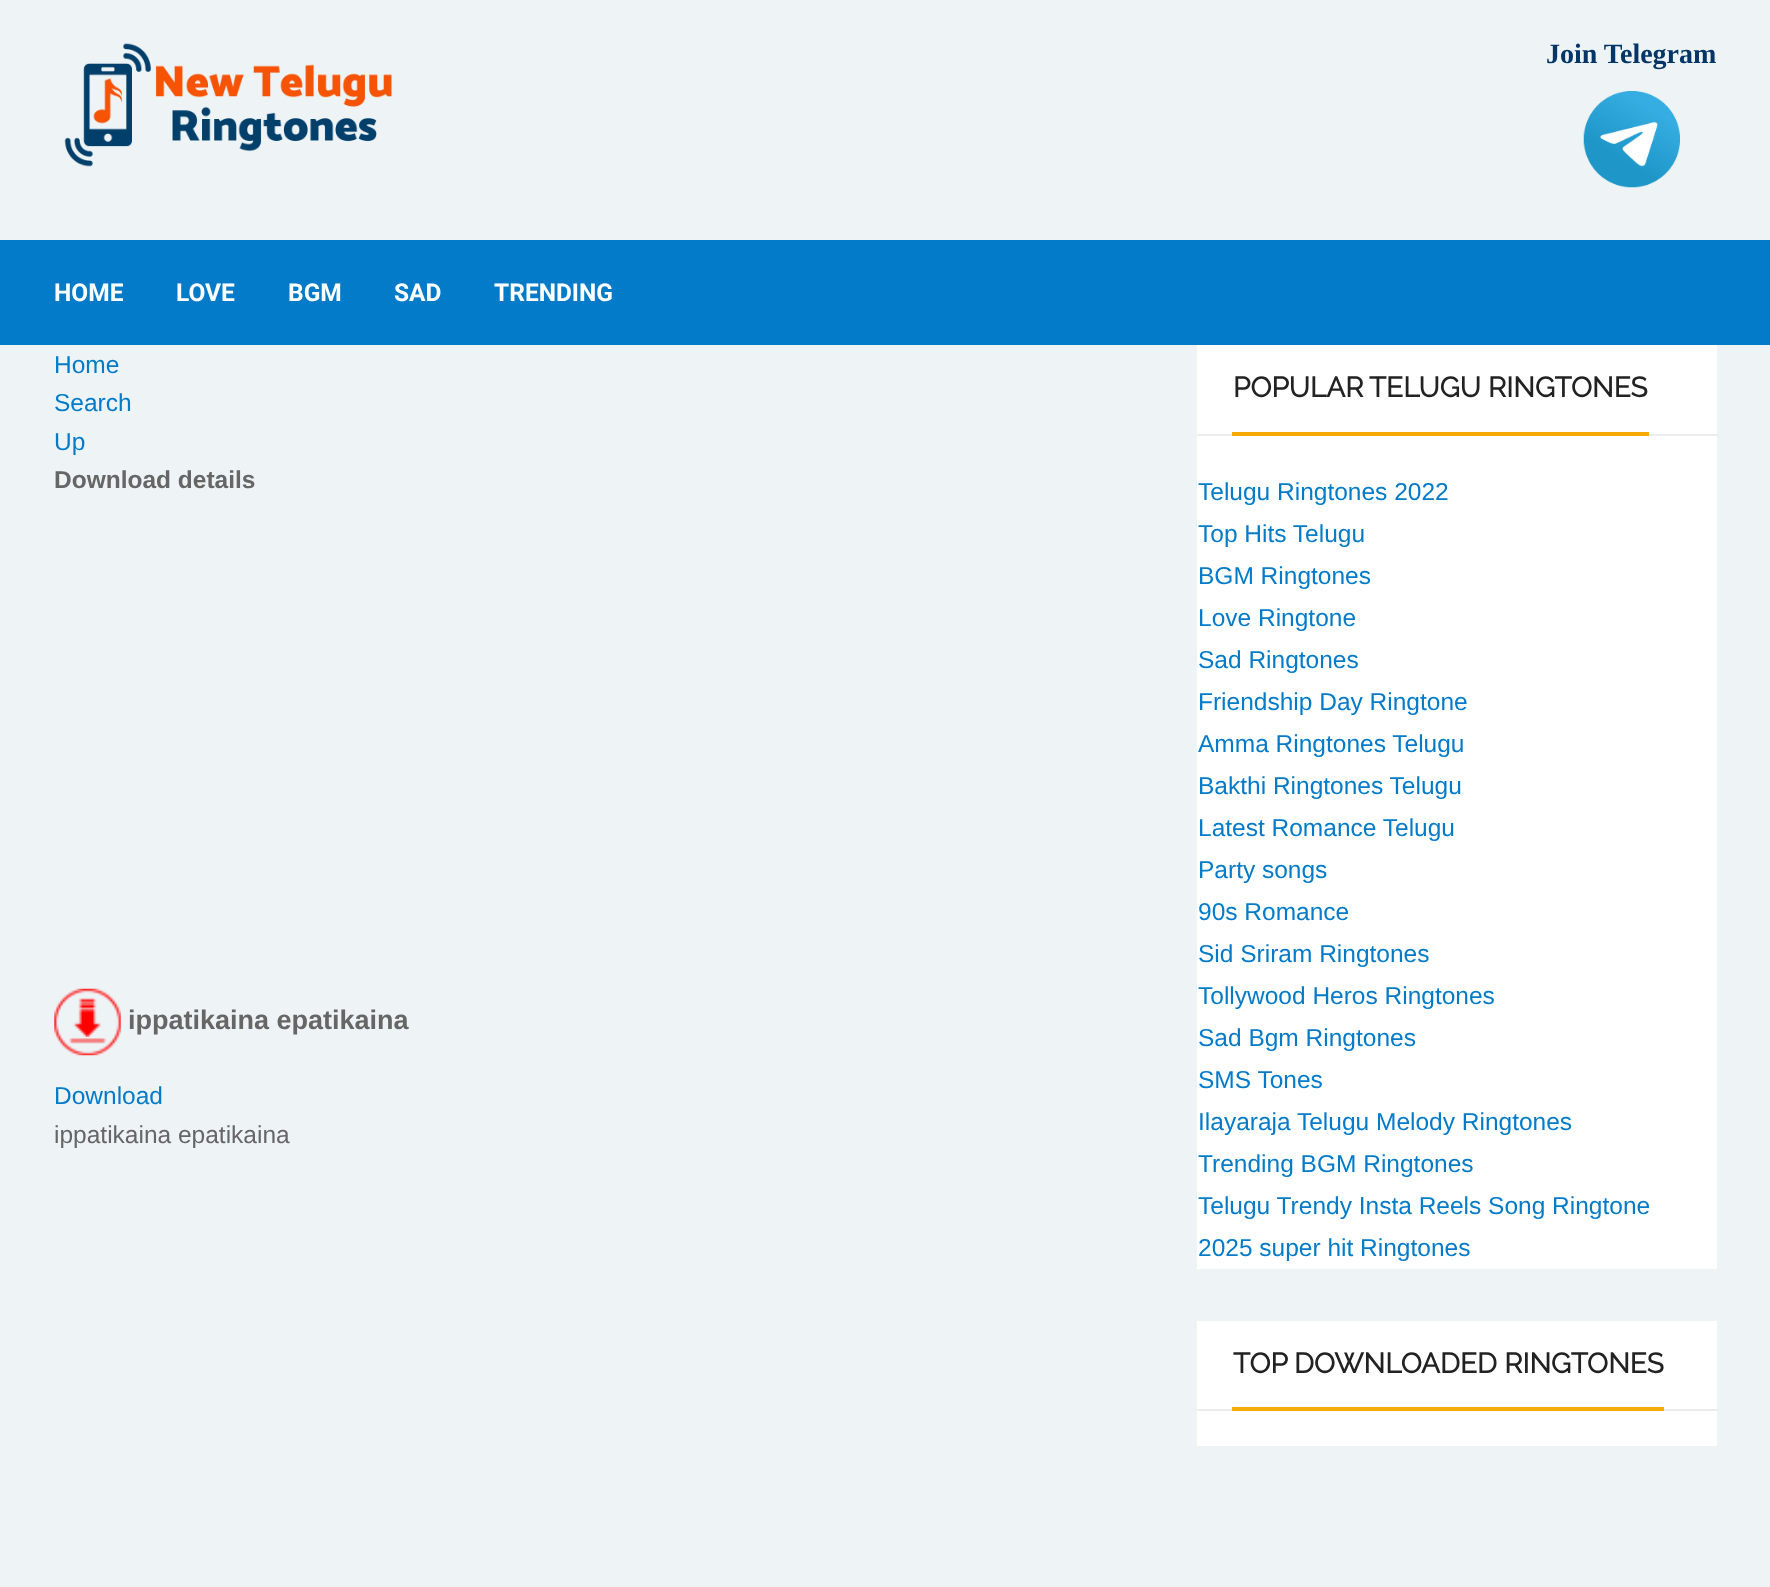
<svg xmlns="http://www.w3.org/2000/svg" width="1770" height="1587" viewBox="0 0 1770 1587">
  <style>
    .t1 { font: bold 28px Liberation Serif; fill: #033566; }
    .t2 { font: bold 24.5px Roboto; fill: #fff; }
    .t3 { font: 24.5px Liberation Sans; fill: #037bc8; }
    .t4 { font: bold 24.5px Liberation Sans; fill: #666; }
    .t5 { font: bold 27px Liberation Sans; fill: #666; }
    .t6 { font: 24.5px Liberation Sans; fill: #666; }
    .t7 { font: bold 28px Raleway; fill: #222; }
  </style>
  <rect width="100%" height="100%" fill="#eef3f6"/>
  <image x="64" y="43" width="328" height="124" href="images/1.png"/>
  <text x="1546" y="63" class="t1">Join Telegram</text>
  <image x="1583" y="91" width="97" height="97" href="images/2.png"/>
  <rect x="0" y="240" width="1770" height="105" fill="#037bc8"/>
  <text x="54" y="301" class="t2">HOME</text>
  <text x="176" y="301" class="t2">LOVE</text>
  <text x="288" y="301" class="t2">BGM</text>
  <text x="394" y="301" class="t2">SAD</text>
  <text x="494" y="301" class="t2">TRENDING</text>
  <text x="54" y="373" class="t3">Home</text>
  <text x="54" y="411" class="t3">Search</text>
  <text x="54" y="450" class="t3">Up</text>
  <text x="54" y="488" class="t4">Download details</text>
  <image x="54" y="988" width="67" height="68" href="images/3.png"/>
  <text x="128" y="1029" class="t5">ippatikaina epatikaina</text>
  <text x="54" y="1104" class="t3">Download</text>
  <text x="54" y="1143" class="t6">ippatikaina epatikaina</text>
  <rect x="1197" y="345" width="520" height="924" fill="#fff"/>
  <rect x="1197" y="434" width="520" height="2" fill="#ebebeb"/>
  <rect x="1232" y="432" width="417" height="4" fill="#f5aa06"/>
  <text x="1233" y="397" class="t7">POPULAR</text>
  <text x="1369" y="397" class="t7">TELUGU RINGTONES</text>
  <text x="1198" y="500" class="t3">Telugu Ringtones 2022</text>
  <text x="1198" y="542" class="t3">Top Hits Telugu</text>
  <text x="1198" y="584" class="t3">BGM Ringtones</text>
  <text x="1198" y="626" class="t3">Love Ringtone</text>
  <text x="1198" y="668" class="t3">Sad Ringtones</text>
  <text x="1198" y="710" class="t3">Friendship Day Ringtone</text>
  <text x="1198" y="752" class="t3">Amma Ringtones Telugu</text>
  <text x="1198" y="794" class="t3">Bakthi Ringtones Telugu</text>
  <text x="1198" y="836" class="t3">Latest Romance Telugu</text>
  <text x="1198" y="878" class="t3">Party songs</text>
  <text x="1198" y="920" class="t3">90s Romance</text>
  <text x="1198" y="962" class="t3">Sid Sriram Ringtones</text>
  <text x="1198" y="1004" class="t3">Tollywood Heros Ringtones</text>
  <text x="1198" y="1046" class="t3">Sad Bgm Ringtones</text>
  <text x="1198" y="1088" class="t3">SMS Tones</text>
  <text x="1198" y="1130" class="t3">Ilayaraja Telugu Melody Ringtones</text>
  <text x="1198" y="1172" class="t3">Trending BGM Ringtones</text>
  <text x="1198" y="1214" class="t3">Telugu Trendy Insta Reels Song Ringtone</text>
  <text x="1198" y="1256" class="t3">2025 super hit Ringtones</text>
  <rect x="1197" y="1321" width="520" height="125" fill="#fff"/>
  <rect x="1197" y="1409" width="520" height="2" fill="#ebebeb"/>
  <rect x="1232" y="1407" width="432" height="4" fill="#f5aa06"/>
  <text x="1233" y="1373" class="t7">TOP</text>
  <text x="1294" y="1373" class="t7">DOWNLOADED RINGTONES</text>
</svg>
